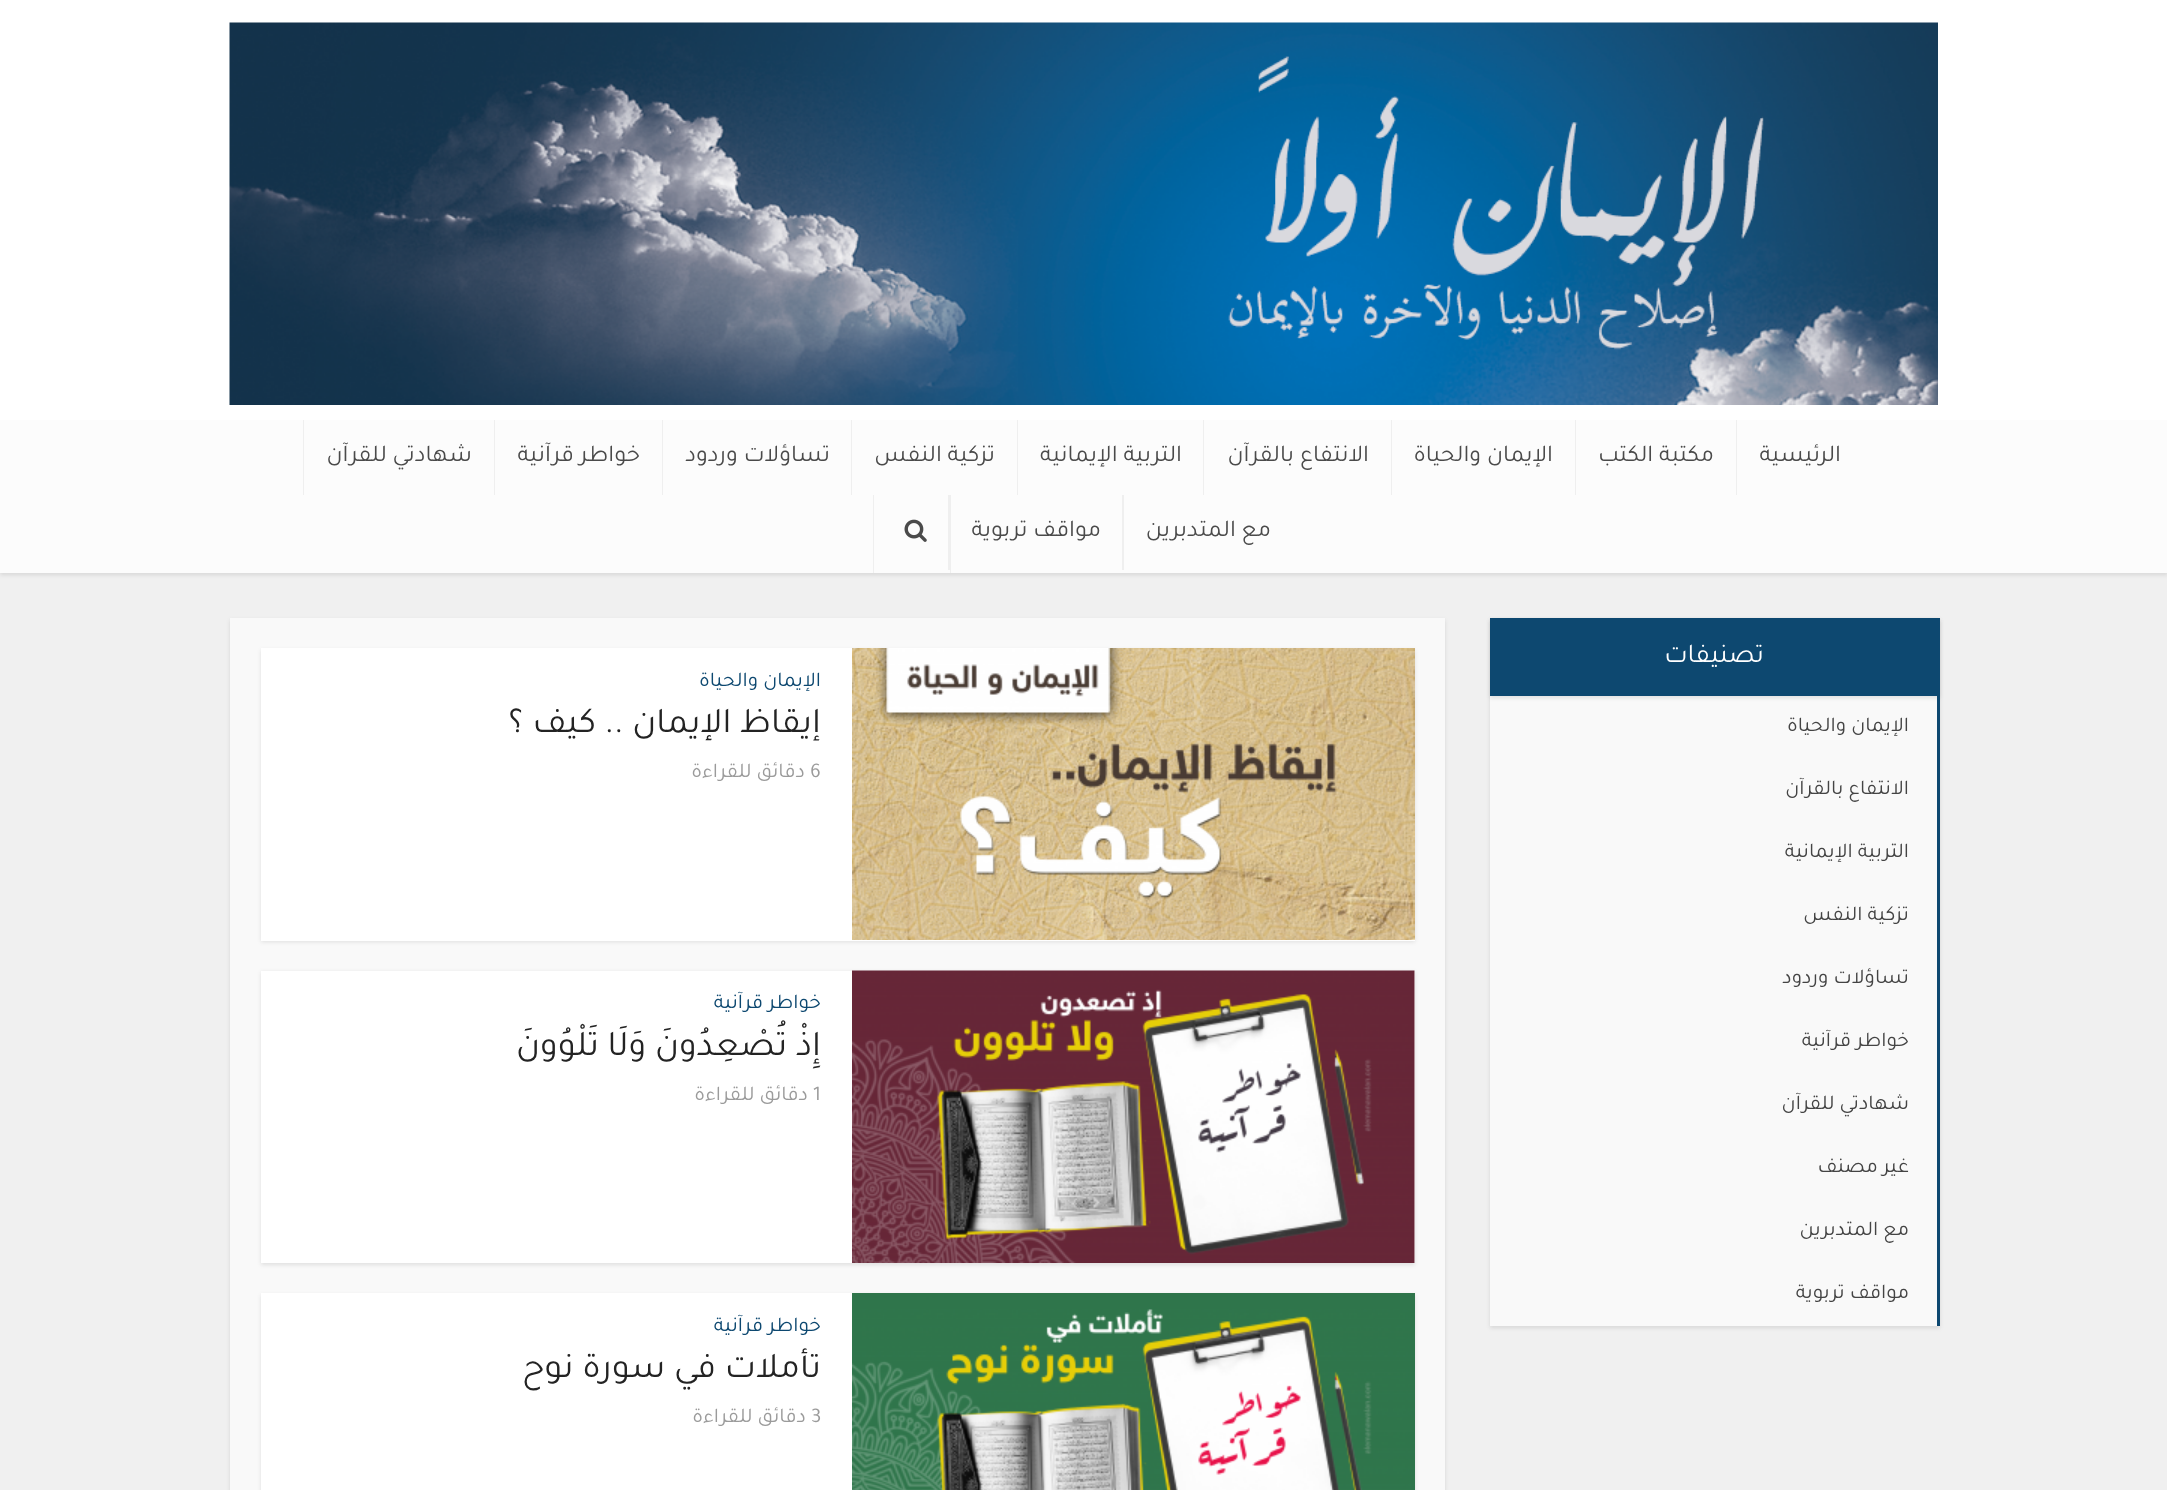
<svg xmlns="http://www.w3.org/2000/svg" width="2167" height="1490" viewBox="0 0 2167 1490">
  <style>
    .t1 { font: 24px Tajawal; direction: rtl; fill: #4a4a4a; }
    .t2 { font: 27px Tajawal; direction: rtl; fill: #fff; }
    .t3 { font: 21px Tajawal; direction: rtl; fill: #444; }
    .t4 { font: 21px Tajawal; direction: rtl; fill: #0d4870; }
    .t5 { font: 36px Tajawal; direction: rtl; fill: #232323; }
    .t6 { font: 21px Tajawal; fill: #9b9b9b; }
    .t7 { font: 21px Tajawal; direction: rtl; fill: #9b9b9b; }
  </style>
  <rect width="100%" height="100%" fill="#f0f0f0"/>
  <rect x="0" y="2" width="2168" height="573" fill="#0000001a" filter="blur(2px)"/>
  <rect x="0" y="0" width="2167" height="420" fill="#fff"/>
  <image x="229" y="22" width="1709" height="383" href="images/1.png"/>
  <rect x="0" y="420" width="2167" height="153" fill="#fcfcfc"/>
  <rect x="1736" y="420" width="1" height="75" fill="#efefef"/>
  <text x="1841" y="461" class="t1">الرئيسية</text>
  <rect x="1575" y="420" width="1" height="75" fill="#efefef"/>
  <text x="1714" y="461" class="t1">مكتبة الكتب</text>
  <rect x="1391" y="420" width="1" height="75" fill="#efefef"/>
  <text x="1553" y="461" class="t1">الإيمان والحياة</text>
  <rect x="1203" y="420" width="1" height="75" fill="#efefef"/>
  <text x="1369" y="461" class="t1">الانتفاع بالقرآن</text>
  <rect x="1017" y="420" width="1" height="75" fill="#efefef"/>
  <text x="1182" y="461" class="t1">التربية الإيمانية</text>
  <rect x="851" y="420" width="1" height="75" fill="#efefef"/>
  <text x="995" y="461" class="t1">تزكية النفس</text>
  <rect x="662" y="420" width="1" height="75" fill="#efefef"/>
  <text x="830" y="461" class="t1">تساؤلات وردود</text>
  <rect x="494" y="420" width="1" height="75" fill="#efefef"/>
  <text x="640" y="461" class="t1">خواطر قرآنية</text>
  <rect x="303" y="420" width="1" height="75" fill="#efefef"/>
  <text x="472" y="461" class="t1">شهادتي للقرآن</text>
  <rect x="1122" y="495" width="2" height="75" fill="#efefef"/>
  <text x="1271" y="536" class="t1">مع المتدبرين</text>
  <rect x="948" y="495" width="2" height="75" fill="#efefef"/>
  <text x="1101" y="536" class="t1">مواقف تربوية</text>
  <rect x="950" y="495" width="1" height="78" fill="#efefef"/>
  <rect x="873" y="495" width="1" height="78" fill="#efefef"/>
  <image x="904" y="519" width="23" height="23" href="images/2.png"/>
  <rect x="1490" y="620" width="450" height="708" fill="#0000001a" filter="blur(2px)"/>
  <rect x="1490" y="696" width="447" height="630" fill="#f9f9f9"/>
  <rect x="1490" y="620" width="450" height="78" fill="#0000001a" filter="blur(2px)"/>
  <rect x="1490" y="618" width="450" height="78" fill="#0d4870"/>
  <text x="1764" y="662" class="t2">تصنيفات</text>
  <rect x="1937" y="696" width="3" height="630" fill="#0d4870"/>
  <text x="1909" y="731" class="t3">الإيمان والحياة</text>
  <text x="1909" y="794" class="t3">الانتفاع بالقرآن</text>
  <text x="1909" y="857" class="t3">التربية الإيمانية</text>
  <text x="1909" y="920" class="t3">تزكية النفس</text>
  <text x="1909" y="983" class="t3">تساؤلات وردود</text>
  <text x="1909" y="1046" class="t3">خواطر قرآنية</text>
  <text x="1909" y="1109" class="t3">شهادتي للقرآن</text>
  <text x="1909" y="1172" class="t3">غير مصنف</text>
  <text x="1909" y="1235" class="t3">مع المتدبرين</text>
  <text x="1909" y="1298" class="t3">مواقف تربوية</text>
  <rect x="230" y="620" width="1215" height="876" fill="#0000001a" filter="blur(2px)"/>
  <rect x="230" y="618" width="1215" height="872" fill="#f9f9f9"/>
  <rect x="261" y="650" width="1154" height="292" fill="#0000001a" filter="blur(2px)"/>
  <rect x="261" y="648" width="1154" height="293" fill="#fff"/>
  <image x="852" y="648" width="563" height="292" href="images/3.png"/>
  <text x="821" y="686" class="t4">الإيمان والحياة</text>
  <text x="821" y="732" class="t5">إيقاظ الإيمان .. كيف ؟</text>
  <text x="810" y="777" class="t6">6</text>
  <text x="805" y="777" class="t7">دقائق للقراءة</text>
  <rect x="261" y="972" width="1154" height="293" fill="#0000001a" filter="blur(2px)"/>
  <rect x="261" y="971" width="1154" height="292" fill="#fff"/>
  <image x="852" y="970" width="563" height="293" href="images/4.png"/>
  <text x="821" y="1008" class="t4">خواطر قرآنية</text>
  <text x="821" y="1055" class="t5">إِذْ تُصْعِدُونَ وَلَا تَلْوُونَ</text>
  <text x="813" y="1100" class="t6">1</text>
  <text x="808" y="1100" class="t7">دقائق للقراءة</text>
  <rect x="261" y="1295" width="1154" height="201" fill="#0000001a" filter="blur(2px)"/>
  <rect x="261" y="1293" width="591" height="197" fill="#fff"/>
  <image x="852" y="1293" width="563" height="197" href="images/5.png"/>
  <text x="821" y="1331" class="t4">خواطر قرآنية</text>
  <text x="821" y="1377" class="t5">تأملات في سورة نوح</text>
  <text x="811" y="1422" class="t6">3</text>
  <text x="806" y="1422" class="t7">دقائق للقراءة</text>
</svg>
